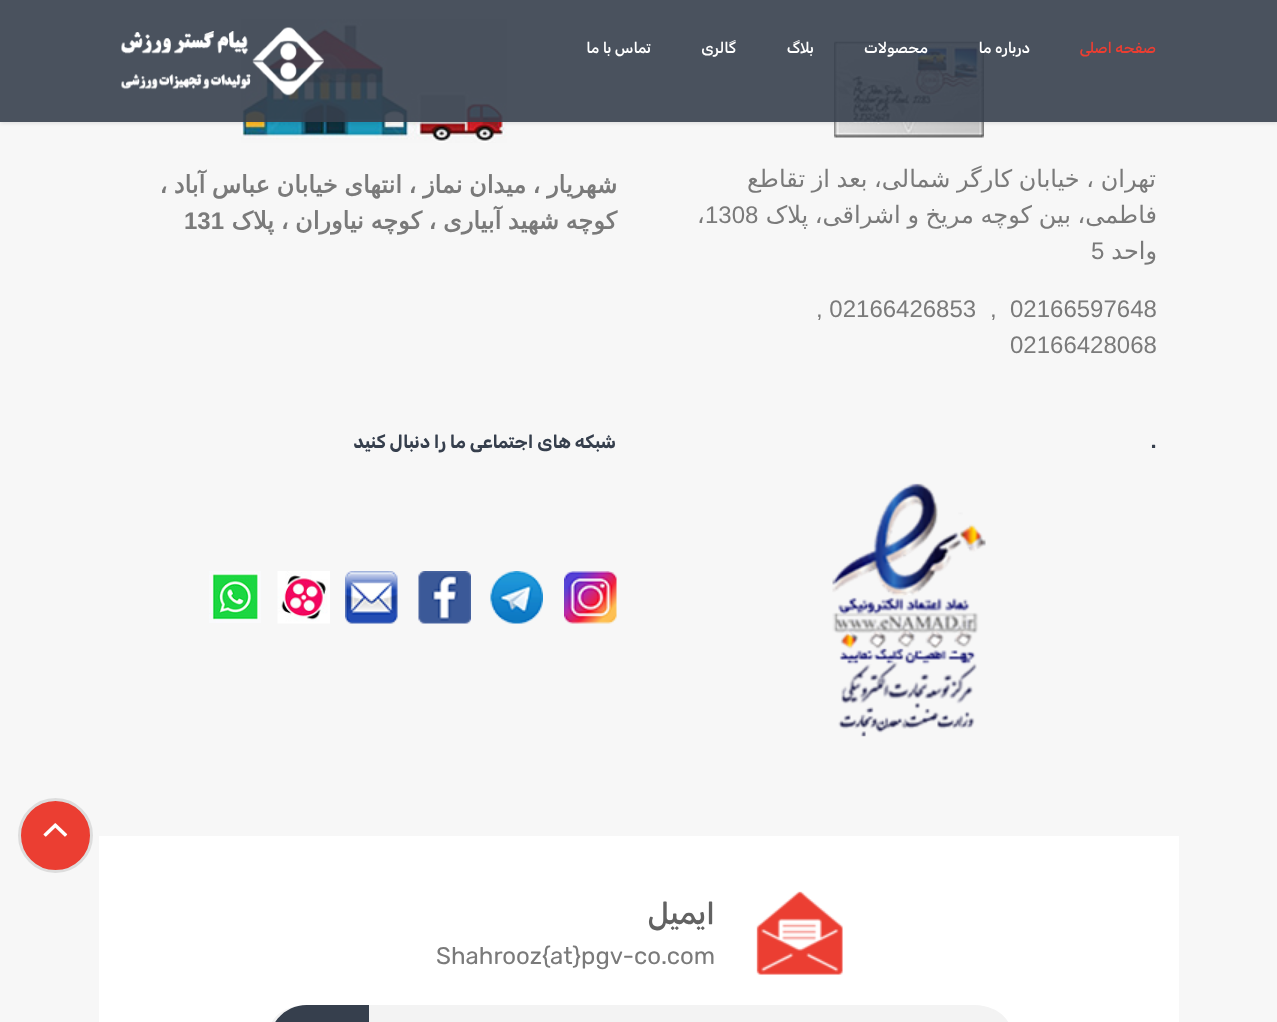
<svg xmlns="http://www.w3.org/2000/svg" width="1277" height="1022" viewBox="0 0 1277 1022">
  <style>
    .t1 { font: 500 15px Rubik; direction: rtl; fill: #eb3e32; }
    .t2 { font: 500 15px Rubik; direction: rtl; fill: #fff; }
    .t3 { font: 24px DejaVu Sans; direction: rtl; fill: #7a7a7a; }
    .t4 { font: 24px Liberation Sans; fill: #7a7a7a; }
    .t5 { font: 24px DejaVu Sans; fill: #7a7a7a; }
    .t6 { font: bold 24px DejaVu Sans; direction: rtl; fill: #7a7a7a; }
    .t7 { font: bold 24px Liberation Sans; fill: #7a7a7a; }
    .t8 { font: bold 18px Rubik; fill: #363f4d; }
    .t9 { font: bold 18px Rubik; direction: rtl; fill: #363f4d; }
    .t10 { font: 500 30px Rubik; direction: rtl; fill: #626262; }
    .t11 { font: 24px Rubik; fill: #7a7a7a; }
  </style>
  <defs>
    <clipPath id="clip1"><path d="M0 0H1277V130H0ZM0 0H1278V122H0Z" clip-rule="evenodd"/></clipPath>
    <clipPath id="clip2"><rect x="662" y="42" width="495" height="344"/></clipPath>
  </defs>
  <rect width="100%" height="100%" fill="#f7f7f7"/>
  <image x="834" y="41" width="150" height="97" href="images/2.png"/>
  <image x="241" y="19" width="266" height="124" href="images/3.png"/>
  <g clip-path="url(#clip1)">
    <rect x="0" y="2" width="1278" height="121" fill="#0000001c" filter="blur(2px)"/>
  </g>
  <rect x="0" y="0" width="1277" height="122" fill="#363f4de6"/>
  <text x="1156" y="53" class="t1">صفحه اصلی</text>
  <text x="1030" y="53" class="t2">درباره ما</text>
  <text x="928" y="53" class="t2">محصولات</text>
  <text x="814" y="53" class="t2">بلاگ</text>
  <text x="736" y="53" class="t2">گالری</text>
  <text x="651" y="53" class="t2">تماس با ما</text>
  <image x="121" y="27" width="203" height="69" href="images/1.png"/>
  <g clip-path="url(#clip2)">
    <text x="1156" y="187" word-spacing="-1" class="t3">تهران ، خیابان کارگر شمالی، بعد از تقاطع</text>
    <text x="1157" y="223" word-spacing="-1" class="t3">فاطمی، بین کوچه مریخ و اشراقی، پلاک</text>
  </g>
  <text x="705" y="223" class="t4">1308</text>
  <text x="697" y="223" class="t5">،</text>
  <text x="1157" y="259" class="t3">واحد</text>
  <text x="1091" y="259" class="t4">5</text>
  <text x="1010" y="317" class="t4">02166597648</text>
  <text x="990" y="317" class="t4">,</text>
  <text x="816" y="317" class="t4">, 02166426853</text>
  <text x="1010" y="353" class="t4">02166428068</text>
  <text x="617" y="193" word-spacing="-1" class="t6">شهریار ، میدان نماز ، انتهای خیابان عباس آباد ،</text>
  <text x="617" y="229" word-spacing="-1" class="t6">کوچه شهید آبیاری ، کوچه نیاوران ، پلاک</text>
  <text x="184" y="229" class="t7">131</text>
  <text x="1151" y="448" class="t8">.</text>
  <image x="832" y="483" width="154" height="254" href="images/4.png"/>
  <text x="616" y="448" class="t9">شبکه های اجتماعی ما را دنبال کنید</text>
  <image x="564" y="571" width="53" height="53" href="images/5.png"/>
  <image x="490" y="571" width="53" height="53" href="images/6.png"/>
  <image x="418" y="571" width="53" height="53" href="images/7.png"/>
  <image x="345" y="571" width="53" height="53" href="images/8.png"/>
  <image x="277" y="571" width="53" height="53" href="images/9.png"/>
  <image x="209" y="571" width="52" height="52" href="images/10.png"/>
  <rect x="99" y="836" width="1080" height="186" fill="#fff"/>
  <image x="756" y="891" width="87" height="84" href="images/11.png"/>
  <text x="715" y="924" class="t10">ایمیل</text>
  <text x="436" y="964" class="t11">Shahrooz{at}pgv-co.com</text>
  <rect x="269" y="1005" width="742" height="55" rx="37.5" fill="#f3f3f3"/>
  <path d="M374 1005H973.5C994 1005 1011 1022 1011 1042.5V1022.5C1011 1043 994 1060 973.5 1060H374Z" fill="#f3f3f3"/>
  <path d="M306.5 1005H369V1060H306.5C286 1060 269 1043 269 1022.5V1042.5C269 1022 286 1005 306.5 1005Z" fill="#363f4d"/>
  <circle cx="55.5" cy="835.5" r="36" fill="#eb3e32" stroke="#ddd" stroke-width="3"/>
  <image x="43" y="823" width="25" height="14" href="images/12.png"/>
</svg>
